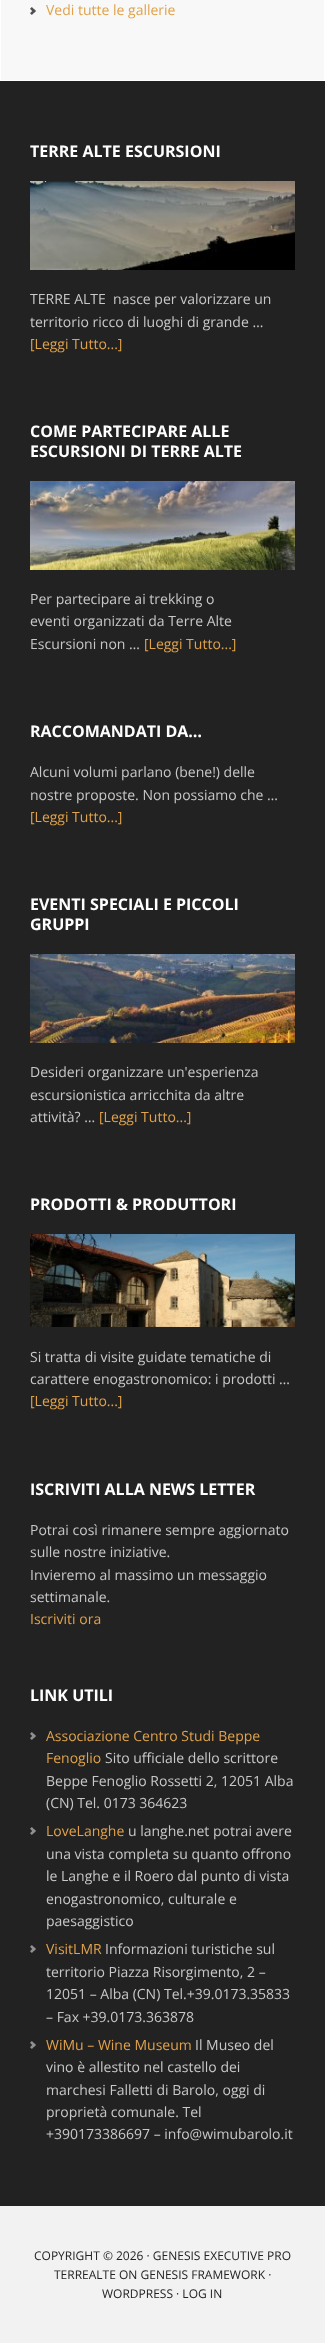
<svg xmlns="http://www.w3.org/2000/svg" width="325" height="2343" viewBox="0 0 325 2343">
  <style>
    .t1 { font: 14px Open Sans; fill: #e0a24b; }
    .t2 { font: bold 16px Open Sans; fill: #fff; }
    .t3 { font: 14px Open Sans; fill: #c8c8c8; }
    .t4 { font: 12px Open Sans; fill: #222; }
  </style>
  <rect width="100%" height="100%" fill="#f2f2f2"/>
  <rect x="0.5" y="-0.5" width="324" height="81" fill="#f8f8f8" stroke="#fff"/>
  <image x="30" y="7" width="6" height="8" href="images/1.png"/>
  <text x="46" y="15" class="t1">Vedi tutte le gallerie</text>
  <rect x="0" y="81" width="325" height="2125" fill="#222"/>
  <text x="30" y="157" class="t2">TERRE ALTE ESCURSIONI</text>
  <image x="30" y="181" width="265" height="89" href="images/2.png"/>
  <text x="30" y="304" class="t3" xml:space="preserve">TERRE ALTE  nasce per valorizzare un</text>
  <text x="30" y="327" class="t3">territorio ricco di luoghi di grande …</text>
  <text x="30" y="349" class="t1">[Leggi Tutto...]</text>
  <text x="30" y="437" class="t2">COME PARTECIPARE ALLE</text>
  <text x="30" y="457" class="t2">ESCURSIONI DI TERRE ALTE</text>
  <image x="30" y="481" width="265" height="89" href="images/3.png"/>
  <text x="30" y="604" class="t3">Per partecipare ai trekking o</text>
  <text x="30" y="626" class="t3">eventi organizzati da Terre Alte</text>
  <text x="30" y="649" class="t3">Escursioni non …</text>
  <text x="144" y="649" class="t1">[Leggi Tutto...]</text>
  <text x="30" y="737" class="t2">RACCOMANDATI DA…</text>
  <text x="30" y="777" class="t3">Alcuni volumi parlano (bene!) delle</text>
  <text x="30" y="800" class="t3">nostre proposte. Non possiamo che …</text>
  <text x="30" y="822" class="t1">[Leggi Tutto...]</text>
  <text x="30" y="910" class="t2">EVENTI SPECIALI E PICCOLI</text>
  <text x="30" y="930" class="t2">GRUPPI</text>
  <image x="30" y="954" width="265" height="89" href="images/4.png"/>
  <text x="30" y="1077" class="t3">Desideri organizzare un'esperienza</text>
  <text x="30" y="1100" class="t3">escursionistica arricchita da altre</text>
  <text x="30" y="1122" class="t3">attività? …</text>
  <text x="99" y="1122" class="t1">[Leggi Tutto...]</text>
  <text x="30" y="1210" class="t2">PRODOTTI &amp; PRODUTTORI</text>
  <image x="30" y="1234" width="265" height="93" href="images/5.png"/>
  <text x="30" y="1362" class="t3">Si tratta di visite guidate tematiche di</text>
  <text x="30" y="1384" class="t3">carattere enogastronomico: i prodotti …</text>
  <text x="30" y="1406" class="t1">[Leggi Tutto...]</text>
  <text x="30" y="1495" class="t2">ISCRIVITI ALLA NEWS LETTER</text>
  <text x="30" y="1535" class="t3">Potrai così rimanere sempre aggiornato</text>
  <text x="30" y="1557" class="t3">sulle nostre iniziative.</text>
  <text x="30" y="1580" class="t3">Invieremo al massimo un messaggio</text>
  <text x="30" y="1602" class="t3">settimanale.</text>
  <text x="30" y="1624" class="t1">Iscriviti ora</text>
  <text x="30" y="1701" class="t2">LINK UTILI</text>
  <image x="30" y="1732" width="6" height="8" href="images/6.png"/>
  <text x="46" y="1741" class="t1">Associazione Centro Studi Beppe</text>
  <text x="46" y="1763" class="t1">Fenoglio</text>
  <text x="105" y="1763" class="t3">Sito ufficiale dello scrittore</text>
  <text x="46" y="1786" class="t3">Beppe Fenoglio Rossetti 2, 12051 Alba</text>
  <text x="46" y="1808" class="t3">(CN) Tel. 0173 364623</text>
  <image x="30" y="1827" width="6" height="8" href="images/6.png"/>
  <text x="46" y="1836" class="t1">LoveLanghe</text>
  <text x="128" y="1836" class="t3">u langhe.net potrai avere</text>
  <text x="46" y="1859" class="t3">una vista completa su quanto offrono</text>
  <text x="46" y="1881" class="t3">le Langhe e il Roero dal punto di vista</text>
  <text x="46" y="1904" class="t3">enogastronomico, culturale e</text>
  <text x="46" y="1926" class="t3">paesaggistico</text>
  <image x="30" y="1945" width="6" height="8" href="images/6.png"/>
  <text x="46" y="1954" class="t1">VisitLMR</text>
  <text x="105" y="1954" class="t3">Informazioni turistiche sul</text>
  <text x="46" y="1977" class="t3">territorio Piazza Risorgimento, 2 –</text>
  <text x="46" y="1999" class="t3">12051 – Alba (CN) Tel.+39.0173.35833</text>
  <text x="46" y="2022" class="t3">– Fax +39.0173.363878</text>
  <image x="30" y="2041" width="6" height="8" href="images/6.png"/>
  <text x="46" y="2050" class="t1">WiMu – Wine Museum</text>
  <text x="195" y="2050" class="t3">Il Museo del</text>
  <text x="46" y="2072" class="t3">vino è allestito nel castello dei</text>
  <text x="46" y="2095" class="t3">marchesi Falletti di Barolo, oggi di</text>
  <text x="46" y="2117" class="t3">proprietà comunale. Tel</text>
  <text x="46" y="2139" class="t3">+390173386697 – info@wimubarolo.it</text>
  <text x="34" y="2260" class="t4">COPYRIGHT © 2026 · GENESIS EXECUTIVE PRO</text>
  <text x="54" y="2279" class="t4">TERREALTE ON GENESIS FRAMEWORK ·</text>
  <text x="102" y="2298" class="t4">WORDPRESS · LOG IN</text>
</svg>
